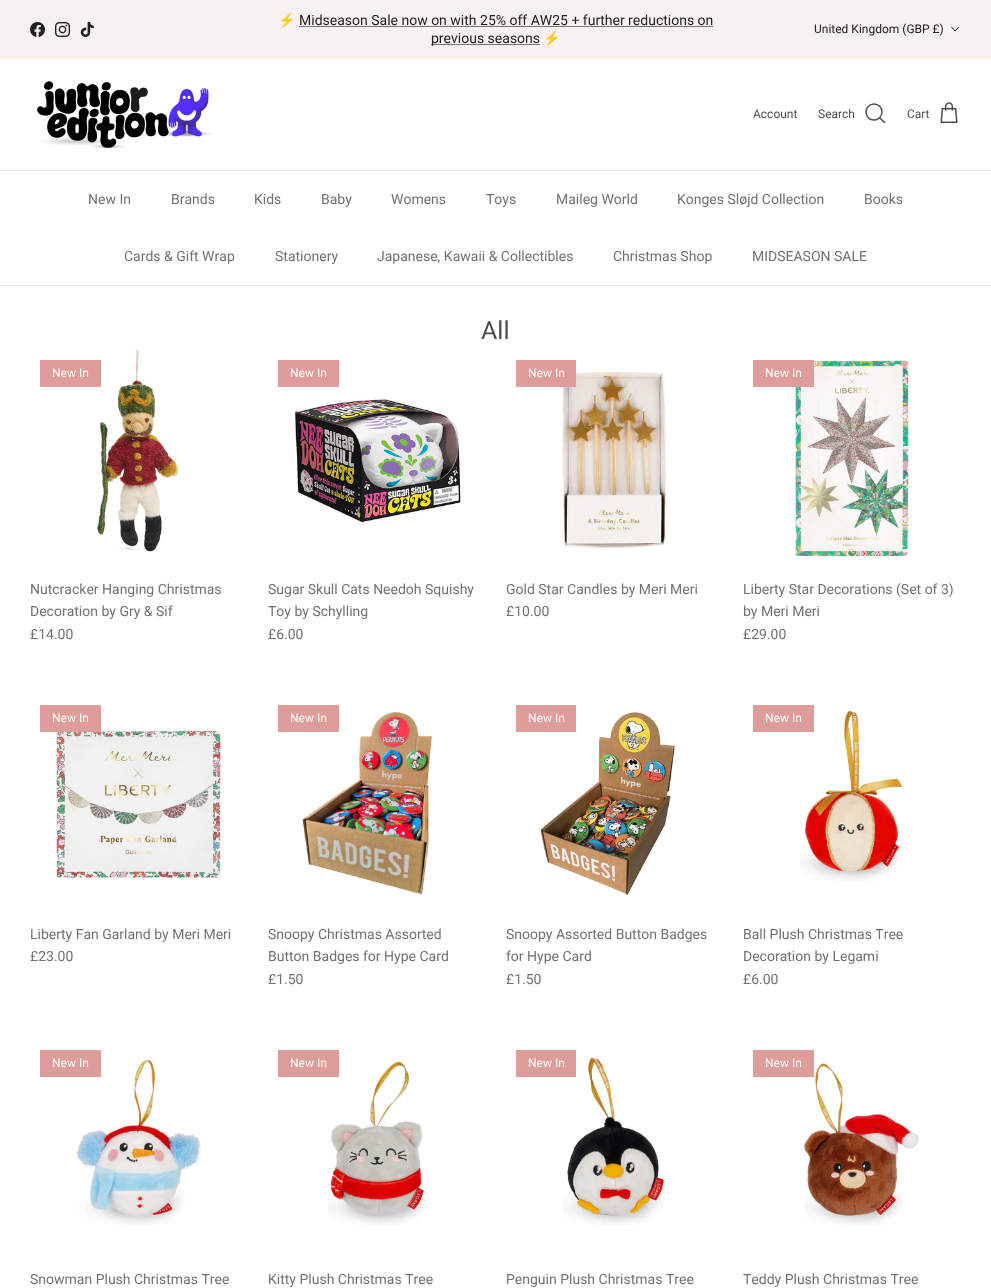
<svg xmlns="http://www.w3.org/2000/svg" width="991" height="1288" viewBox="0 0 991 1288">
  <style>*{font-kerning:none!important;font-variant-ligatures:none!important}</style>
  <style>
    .t1 { font: 14px Noto Color Emoji; fill: #212121; }
    .t2 { font: 14px Roboto; fill: #212121; }
    .t3 { font: 12px Roboto; fill: #212121; }
    .t4 { font: 12px Roboto; fill: #4d4d4d; }
    .t5 { font: 14px Roboto; fill: #707173; }
    .t6 { font: 25px Roboto; fill: #4d4d4d; }
    .t7 { font: 12px Roboto; fill: #fff; }
  </style>
  <rect width="100%" height="100%" fill="#fff"/>
  <rect x="0" y="0" width="991" height="59" fill="#f7f1f0"/>
  <image x="30" y="22" width="15" height="15" href="images/1.png"/>
  <image x="55" y="22" width="15" height="15" href="images/2.png"/>
  <image x="80" y="22" width="14" height="15" href="images/3.png"/>
  <text x="278" y="25" class="t1">⚡</text>
  <text x="299" y="25" class="t2">Midseason Sale now on with 25% off AW25 + further reductions on</text>
  <rect x="299" y="26" width="414" height="1" fill="#777474"/>
  <rect x="431" y="44" width="109" height="1" fill="#777474"/>
  <text x="431" y="43" class="t2">previous seasons</text>
  <text x="543" y="43" class="t1">⚡</text>
  <text x="814" y="33" class="t3">United Kingdom (GBP £)</text>
  <path d="M959 27L955 31L951.5 27" fill="none" stroke="#212121"/>
  <rect x="0" y="170" width="991" height="1" fill="#dfe3e8"/>
  <image x="37" y="81" width="175" height="68" href="images/4.png"/>
  <text x="753" y="118" class="t4">Account</text>
  <text x="818" y="118" class="t4">Search</text>
  <circle cx="874" cy="112" r="8" fill="none" stroke="#4d4d4d" stroke-width="1.5"/>
  <path d="M880 118L884.5 122.5" fill="none" stroke="#4d4d4d" stroke-width="1.5" stroke-linecap="square"/>
  <text x="907" y="118" class="t4">Cart</text>
  <image x="940" y="102" width="18" height="21" href="images/5.png"/>
  <rect x="0" y="285" width="991" height="1" fill="#dfe3e8"/>
  <text x="88" y="204" class="t5">New In</text>
  <text x="171" y="204" class="t5">Brands</text>
  <text x="254" y="204" class="t5">Kids</text>
  <text x="321" y="204" class="t5">Baby</text>
  <text x="391" y="204" class="t5">Womens</text>
  <text x="486" y="204" class="t5">Toys</text>
  <text x="556" y="204" class="t5">Maileg World</text>
  <text x="677" y="204" class="t5">Konges Sløjd Collection</text>
  <text x="864" y="204" class="t5">Books</text>
  <text x="124" y="261" class="t5">Cards &amp; Gift Wrap</text>
  <text x="275" y="261" class="t5">Stationery</text>
  <text x="377" y="261" class="t5">Japanese, Kawaii &amp; Collectibles</text>
  <text x="613" y="261" class="t5">Christmas Shop</text>
  <text x="752" y="261" class="t5">MIDSEASON SALE</text>
  <text x="481" y="339" class="t6">All</text>
  <image x="96" y="350" width="83" height="202" href="images/6.png"/>
  <rect x="40" y="360" width="61" height="27" fill="#de9d9a"/>
  <text x="52" y="377" class="t7">New In</text>
  <text x="30" y="594" class="t5">Nutcracker Hanging Christmas</text>
  <text x="30" y="616" class="t5">Decoration by Gry &amp; Sif</text>
  <text x="30" y="639" class="t5">£14.00</text>
  <rect x="278" y="360" width="61" height="27" fill="#de9d9a"/>
  <text x="290" y="377" class="t7">New In</text>
  <image x="294" y="397" width="167" height="127" href="images/7.png"/>
  <text x="268" y="594" class="t5">Sugar Skull Cats Needoh Squishy</text>
  <text x="268" y="616" class="t5">Toy by Schylling</text>
  <text x="268" y="639" class="t5">£6.00</text>
  <image x="562" y="371" width="105" height="178" href="images/8.png"/>
  <rect x="516" y="360" width="60" height="27" fill="#de9d9a"/>
  <text x="528" y="377" class="t7">New In</text>
  <text x="506" y="594" class="t5">Gold Star Candles by Meri Meri</text>
  <text x="506" y="616" class="t5">£10.00</text>
  <image x="794" y="360" width="118" height="200" href="images/9.png"/>
  <rect x="753" y="360" width="61" height="27" fill="#de9d9a"/>
  <text x="765" y="377" class="t7">New In</text>
  <text x="743" y="594" class="t5">Liberty Star Decorations (Set of 3)</text>
  <text x="743" y="616" class="t5">by Meri Meri</text>
  <text x="743" y="639" class="t5">£29.00</text>
  <image x="55" y="730" width="169" height="150" href="images/10.png"/>
  <rect x="40" y="705" width="61" height="27" fill="#de9d9a"/>
  <text x="52" y="722" class="t7">New In</text>
  <text x="30" y="939" class="t5">Liberty Fan Garland by Meri Meri</text>
  <text x="30" y="961" class="t5">£23.00</text>
  <image x="301" y="711" width="132" height="184" href="images/11.png"/>
  <rect x="278" y="705" width="61" height="27" fill="#de9d9a"/>
  <text x="290" y="722" class="t7">New In</text>
  <text x="268" y="939" class="t5">Snoopy Christmas Assorted</text>
  <text x="268" y="961" class="t5">Button Badges for Hype Card</text>
  <text x="268" y="984" class="t5">£1.50</text>
  <image x="539" y="711" width="137" height="184" href="images/12.png"/>
  <rect x="516" y="705" width="60" height="27" fill="#de9d9a"/>
  <text x="528" y="722" class="t7">New In</text>
  <text x="506" y="939" class="t5">Snoopy Assorted Button Badges</text>
  <text x="506" y="961" class="t5">for Hype Card</text>
  <text x="506" y="984" class="t5">£1.50</text>
  <image x="800" y="710" width="103" height="172" href="images/13.png"/>
  <rect x="753" y="705" width="61" height="27" fill="#de9d9a"/>
  <text x="765" y="722" class="t7">New In</text>
  <text x="743" y="939" class="t5">Ball Plush Christmas Tree</text>
  <text x="743" y="961" class="t5">Decoration by Legami</text>
  <text x="743" y="984" class="t5">£6.00</text>
  <image x="76" y="1060" width="126" height="166" href="images/14.png"/>
  <rect x="40" y="1050" width="61" height="27" fill="#de9d9a"/>
  <text x="52" y="1067" class="t7">New In</text>
  <text x="30" y="1284" class="t5">Snowman Plush Christmas Tree</text>
  <image x="328" y="1061" width="102" height="165" href="images/15.png"/>
  <rect x="278" y="1050" width="61" height="27" fill="#de9d9a"/>
  <text x="290" y="1067" class="t7">New In</text>
  <text x="268" y="1284" class="t5">Kitty Plush Christmas Tree</text>
  <image x="562" y="1057" width="103" height="169" href="images/16.png"/>
  <rect x="516" y="1050" width="60" height="27" fill="#de9d9a"/>
  <text x="528" y="1067" class="t7">New In</text>
  <text x="506" y="1284" class="t5">Penguin Plush Christmas Tree</text>
  <image x="804" y="1063" width="115" height="164" href="images/17.png"/>
  <rect x="753" y="1050" width="61" height="27" fill="#de9d9a"/>
  <text x="765" y="1067" class="t7">New In</text>
  <text x="743" y="1284" class="t5">Teddy Plush Christmas Tree</text>
</svg>
